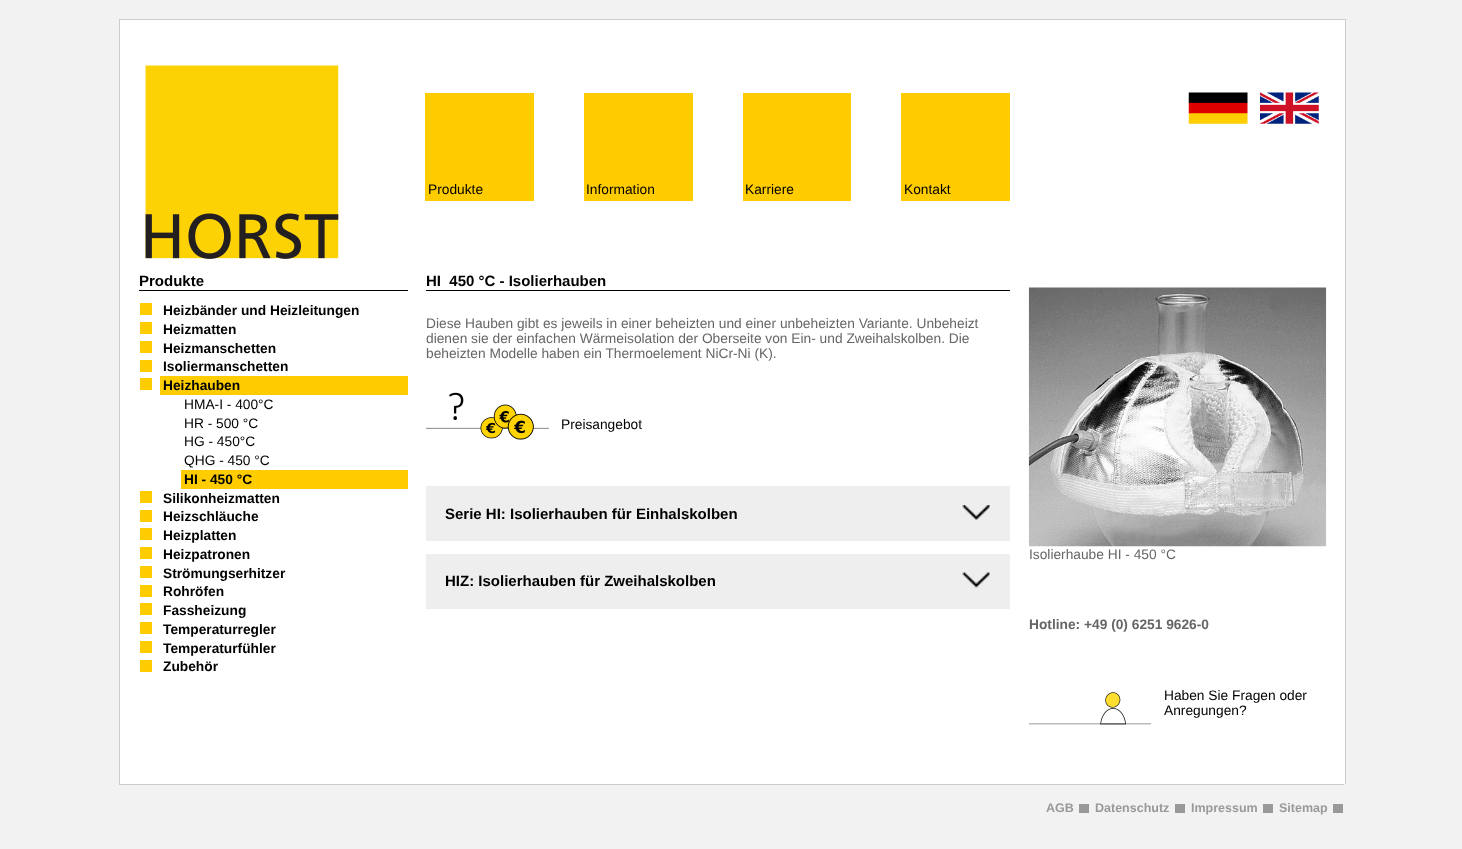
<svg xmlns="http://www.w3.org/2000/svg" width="1462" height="849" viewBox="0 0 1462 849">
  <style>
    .t1 { font: 13.75px Liberation Sans; fill: #000; }
    .t2 { font: bold 15px Liberation Sans; fill: #000; }
    .t3 { font: bold 13.75px Liberation Sans; fill: #000; }
    .t4 { font: 13.75px Liberation Sans; fill: #666; }
    .t5 { font: bold 13.75px Liberation Sans; fill: #666; }
    .t6 { font: bold 12.5px Liberation Sans; fill: #999; }
  </style>
  <rect width="100%" height="100%" fill="#f2f2f2"/>
  <rect x="120" y="20" width="1225" height="764" fill="#fff"/>
  <rect x="119" y="19" width="1227" height="1" fill="#ccc"/>
  <rect x="1345" y="19" width="1" height="765" fill="#ccc"/>
  <rect x="119" y="19" width="1" height="765" fill="#ccc"/>
  <image x="145" y="65" width="194" height="194" href="images/1.png"/>
  <image x="1188" y="92" width="60" height="32" href="images/2.png"/>
  <image x="1260" y="92" width="59" height="32" href="images/3.png"/>
  <rect x="425" y="93" width="109" height="108" fill="#fc0"/>
  <text x="428" y="194" class="t1">Produkte</text>
  <rect x="584" y="93" width="109" height="108" fill="#fc0"/>
  <text x="586" y="194" class="t1">Information</text>
  <rect x="743" y="93" width="108" height="108" fill="#fc0"/>
  <text x="745" y="194" class="t1">Karriere</text>
  <rect x="901" y="93" width="109" height="108" fill="#fc0"/>
  <text x="904" y="194" class="t1">Kontakt</text>
  <rect x="139" y="290" width="269" height="1" fill="#000"/>
  <text x="139" y="286" class="t2">Produkte</text>
  <rect x="140" y="303" width="12" height="12" fill="#fc0"/>
  <text x="163" y="315" class="t3">Heizbänder und Heizleitungen</text>
  <rect x="140" y="322" width="12" height="12" fill="#fc0"/>
  <text x="163" y="334" class="t3">Heizmatten</text>
  <rect x="140" y="341" width="12" height="12" fill="#fc0"/>
  <text x="163" y="353" class="t3">Heizmanschetten</text>
  <rect x="140" y="360" width="12" height="12" fill="#fc0"/>
  <text x="163" y="371" class="t3">Isoliermanschetten</text>
  <rect x="140" y="378" width="12" height="12" fill="#fc0"/>
  <rect x="160" y="376" width="248" height="19" fill="#fc0"/>
  <text x="163" y="390" class="t3">Heizhauben</text>
  <text x="184" y="409" class="t1">HMA-I - 400°C</text>
  <text x="184" y="428" class="t1">HR - 500 °C</text>
  <text x="184" y="446" class="t1">HG - 450°C</text>
  <text x="184" y="465" class="t1">QHG - 450 °C</text>
  <rect x="181" y="470" width="227" height="19" fill="#fc0"/>
  <text x="184" y="484" class="t3">HI - 450 °C</text>
  <rect x="140" y="491" width="12" height="12" fill="#fc0"/>
  <text x="163" y="503" class="t3">Silikonheizmatten</text>
  <rect x="140" y="510" width="12" height="12" fill="#fc0"/>
  <text x="163" y="521" class="t3">Heizschläuche</text>
  <rect x="140" y="528" width="12" height="12" fill="#fc0"/>
  <text x="163" y="540" class="t3">Heizplatten</text>
  <rect x="140" y="547" width="12" height="12" fill="#fc0"/>
  <text x="163" y="559" class="t3">Heizpatronen</text>
  <rect x="140" y="566" width="12" height="12" fill="#fc0"/>
  <text x="163" y="578" class="t3">Strömungserhitzer</text>
  <rect x="140" y="585" width="12" height="12" fill="#fc0"/>
  <text x="163" y="596" class="t3">Rohröfen</text>
  <rect x="140" y="603" width="12" height="12" fill="#fc0"/>
  <text x="163" y="615" class="t3">Fassheizung</text>
  <rect x="140" y="622" width="12" height="12" fill="#fc0"/>
  <text x="163" y="634" class="t3">Temperaturregler</text>
  <rect x="140" y="641" width="12" height="12" fill="#fc0"/>
  <text x="163" y="653" class="t3">Temperaturfühler</text>
  <rect x="140" y="660" width="12" height="12" fill="#fc0"/>
  <text x="163" y="671" class="t3">Zubehör</text>
  <rect x="426" y="290" width="584" height="1" fill="#000"/>
  <text x="426" y="286" class="t2" xml:space="preserve">HI  450 °C - Isolierhauben</text>
  <text x="426" y="328" class="t4">Diese Hauben gibt es jeweils in einer beheizten und einer unbeheizten Variante. Unbeheizt</text>
  <text x="426" y="343" class="t4">dienen sie der einfachen Wärmeisolation der Oberseite von Ein- und Zweihalskolben. Die</text>
  <text x="426" y="358" class="t4">beheizten Modelle haben ein Thermoelement NiCr-Ni (K).</text>
  <image x="426" y="392" width="123" height="48" href="images/4.png"/>
  <text x="561" y="429" class="t1">Preisangebot</text>
  <rect x="426" y="486" width="584" height="55" fill="#eee"/>
  <text x="445" y="519" class="t2">Serie HI: Isolierhauben für Einhalskolben</text>
  <image x="962" y="505" width="28" height="15" href="images/5.png"/>
  <rect x="426" y="554" width="584" height="55" fill="#eee"/>
  <text x="445" y="586" class="t2">HIZ: Isolierhauben für Zweihalskolben</text>
  <image x="962" y="572" width="28" height="16" href="images/6.png"/>
  <image x="1028" y="287" width="299" height="260" href="images/7.png"/>
  <text x="1029" y="559" class="t4">Isolierhaube HI - 450 °C</text>
  <text x="1029" y="629" class="t5">Hotline: +49 (0) 6251 9626-0</text>
  <image x="1029" y="692" width="122" height="33" href="images/8.png"/>
  <text x="1164" y="700" class="t1">Haben Sie Fragen oder</text>
  <text x="1164" y="715" class="t1">Anregungen?</text>
  <rect x="119" y="784" width="1225" height="1" fill="#ccc"/>
  <text x="1046" y="812" class="t6">AGB</text>
  <rect x="1079" y="804" width="10" height="9" fill="#999"/>
  <text x="1095" y="812" class="t6">Datenschutz</text>
  <rect x="1175" y="804" width="10" height="9" fill="#999"/>
  <text x="1191" y="812" class="t6">Impressum</text>
  <rect x="1263" y="804" width="10" height="9" fill="#999"/>
  <text x="1279" y="812" class="t6">Sitemap</text>
  <rect x="1333" y="804" width="10" height="9" fill="#999"/>
</svg>
